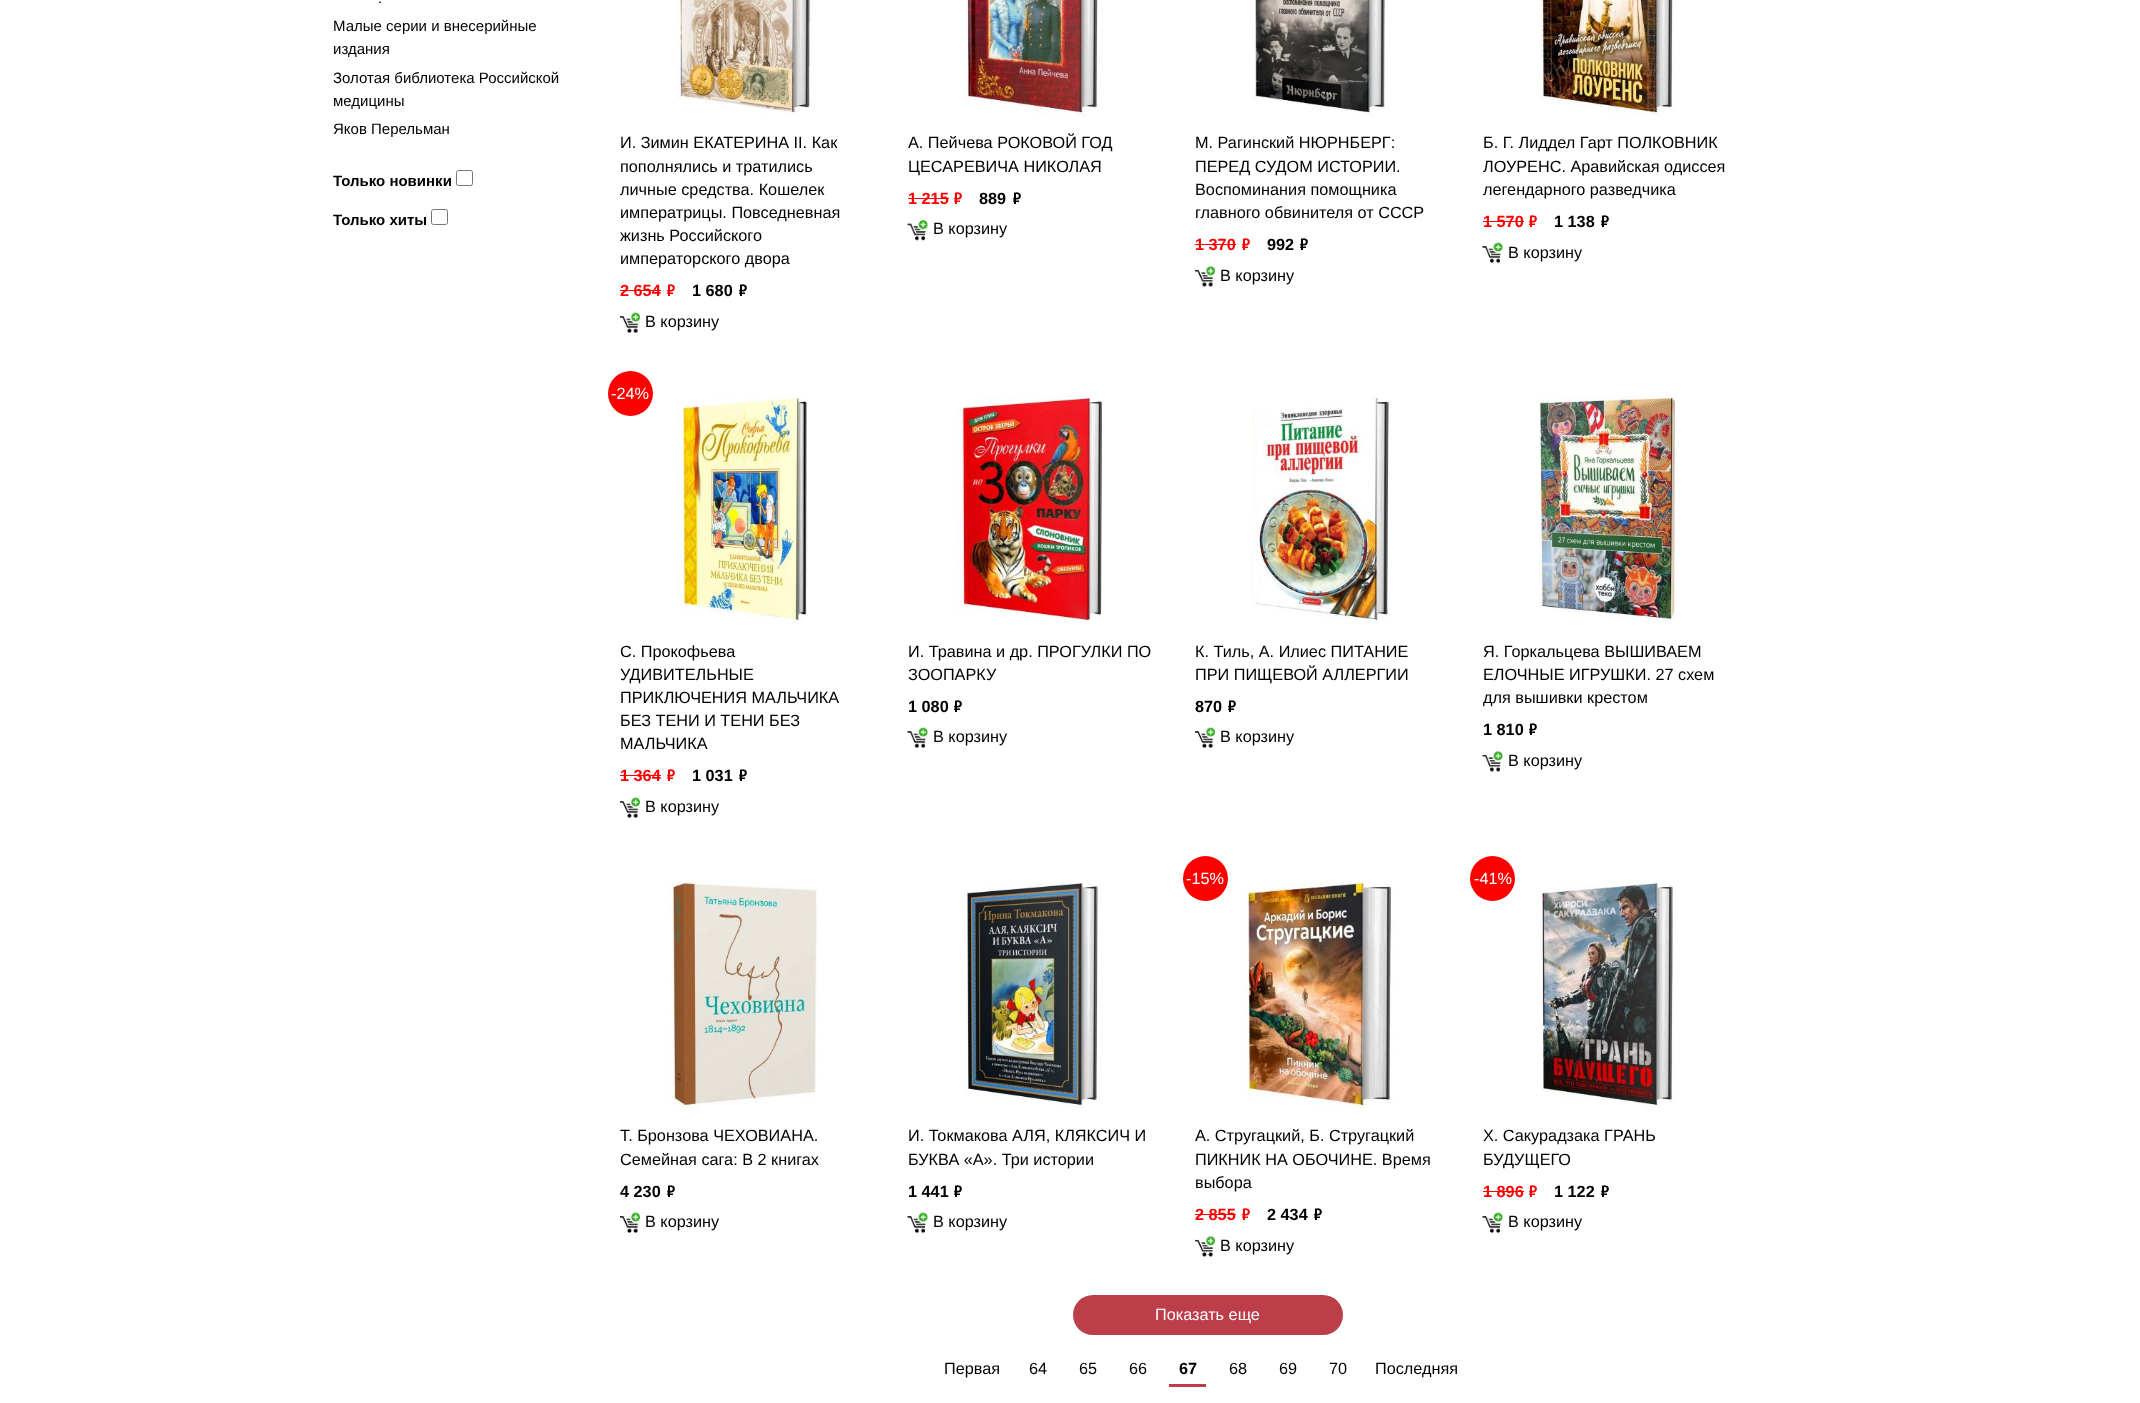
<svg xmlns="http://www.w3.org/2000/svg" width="2140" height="1403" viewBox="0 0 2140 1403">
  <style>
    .t1 { font: 15px Liberation Sans; fill: #000; }
    .t2 { font: bold 15px Liberation Sans; fill: #000; }
    .t3 { font: 16.25px Liberation Sans; fill: #000; }
    .t4 { font: bold 16.25px Liberation Sans; fill: #f00; }
    .t5 { font: bold 16.25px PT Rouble; fill: #f00; }
    .t6 { font: bold 16.25px Liberation Sans; fill: #000; }
    .t7 { font: bold 16.25px PT Rouble; fill: #000; }
    .t8 { font: 16.25px Liberation Sans; fill: #fff; }
  </style>
  <rect width="100%" height="100%" fill="#fff"/>
  <text x="378" y="3" class="t1">.</text>
  <text x="333" y="31" class="t1">Малые серии и внесерийные</text>
  <text x="333" y="54" class="t1">издания</text>
  <text x="333" y="83" class="t1">Золотая библиотека Российской</text>
  <text x="333" y="106" class="t1">медицины</text>
  <text x="333" y="134" class="t1">Яков Перельман</text>
  <text x="333" y="186" class="t2">Только новинки</text>
  <rect x="456.5" y="170.5" width="16" height="15" rx="2" fill="none" stroke="#767676"/>
  <text x="333" y="225" class="t2">Только хиты</text>
  <rect x="431.5" y="209.5" width="16" height="15" rx="2" fill="none" stroke="#767676"/>
  <image x="677" y="0" width="137" height="116" href="images/1.png"/>
  <text x="620" y="148" class="t3">И. Зимин ЕКАТЕРИНА II. Как</text>
  <text x="620" y="172" class="t3">пополнялись и тратились</text>
  <text x="620" y="195" class="t3">личные средства. Кошелек</text>
  <text x="620" y="218" class="t3">императрицы. Повседневная</text>
  <text x="620" y="241" class="t3">жизнь Российского</text>
  <text x="620" y="264" class="t3">императорского двора</text>
  <text x="620" y="296" class="t4">2 654</text>
  <rect x="620" y="290" width="41" height="1" fill="#f00"/>
  <text x="667" y="296" class="t5">ф</text>
  <text x="692" y="296" class="t6">1 680</text>
  <text x="739" y="296" class="t7">ф</text>
  <image x="620" y="312" width="20" height="21" href="images/2.png"/>
  <text x="645" y="327" class="t3">В корзину</text>
  <image x="964" y="0" width="138" height="117" href="images/3.png"/>
  <text x="908" y="148" class="t3">А. Пейчева РОКОВОЙ ГОД</text>
  <text x="908" y="172" class="t3">ЦЕСАРЕВИЧА НИКОЛАЯ</text>
  <text x="908" y="204" class="t4">1 215</text>
  <rect x="908" y="198" width="41" height="1" fill="#f00"/>
  <text x="954" y="204" class="t5">ф</text>
  <text x="979" y="204" class="t6">889</text>
  <text x="1013" y="204" class="t7">ф</text>
  <image x="907" y="220" width="21" height="21" href="images/4.png"/>
  <text x="933" y="234" class="t3">В корзину</text>
  <image x="1252" y="0" width="136" height="116" href="images/5.png"/>
  <text x="1195" y="148" class="t3">М. Рагинский НЮРНБЕРГ:</text>
  <text x="1195" y="172" class="t3">ПЕРЕД СУДОМ ИСТОРИИ.</text>
  <text x="1195" y="195" class="t3">Воспоминания помощника</text>
  <text x="1195" y="218" class="t3">главного обвинителя от СССР</text>
  <text x="1195" y="250" class="t4">1 370</text>
  <rect x="1195" y="244" width="41" height="1" fill="#f00"/>
  <text x="1242" y="250" class="t5">ф</text>
  <text x="1267" y="250" class="t6">992</text>
  <text x="1300" y="250" class="t7">ф</text>
  <image x="1195" y="266" width="20" height="21" href="images/6.png"/>
  <text x="1220" y="281" class="t3">В корзину</text>
  <image x="1540" y="0" width="137" height="117" href="images/7.png"/>
  <text x="1483" y="148" class="t3">Б. Г. Лиддел Гарт ПОЛКОВНИК</text>
  <text x="1483" y="172" class="t3">ЛОУРЕНС. Аравийская одиссея</text>
  <text x="1483" y="195" class="t3">легендарного разведчика</text>
  <text x="1483" y="227" class="t4">1 570</text>
  <rect x="1483" y="221" width="41" height="1" fill="#f00"/>
  <text x="1529" y="227" class="t5">ф</text>
  <text x="1554" y="227" class="t6">1 138</text>
  <text x="1601" y="227" class="t7">ф</text>
  <image x="1482" y="242" width="21" height="21" href="images/8.png"/>
  <text x="1508" y="258" class="t3">В корзину</text>
  <circle cx="630.5" cy="393.5" r="22.5" fill="#f00"/>
  <text x="611" y="399" class="t8">-24%</text>
  <image x="677" y="395" width="131" height="229" href="images/9.png"/>
  <text x="620" y="657" class="t3">С. Прокофьева</text>
  <text x="620" y="680" class="t3">УДИВИТЕЛЬНЫЕ</text>
  <text x="620" y="703" class="t3">ПРИКЛЮЧЕНИЯ МАЛЬЧИКА</text>
  <text x="620" y="726" class="t3">БЕЗ ТЕНИ И ТЕНИ БЕЗ</text>
  <text x="620" y="749" class="t3">МАЛЬЧИКА</text>
  <text x="620" y="781" class="t4">1 364</text>
  <rect x="620" y="775" width="41" height="1" fill="#f00"/>
  <text x="667" y="781" class="t5">ф</text>
  <text x="692" y="781" class="t6">1 031</text>
  <text x="739" y="781" class="t7">ф</text>
  <image x="620" y="797" width="20" height="21" href="images/10.png"/>
  <text x="645" y="812" class="t3">В корзину</text>
  <image x="953" y="395" width="149" height="229" href="images/11.png"/>
  <text x="908" y="657" class="t3">И. Травина и др. ПРОГУЛКИ ПО</text>
  <text x="908" y="680" class="t3">ЗООПАРКУ</text>
  <text x="908" y="712" class="t6">1 080</text>
  <text x="954" y="712" class="t7">ф</text>
  <image x="907" y="727" width="21" height="21" href="images/12.png"/>
  <text x="933" y="742" class="t3">В корзину</text>
  <image x="1251" y="396" width="138" height="228" href="images/13.png"/>
  <text x="1195" y="657" class="t3">К. Тиль, А. Илиес ПИТАНИЕ</text>
  <text x="1195" y="680" class="t3">ПРИ ПИЩЕВОЙ АЛЛЕРГИИ</text>
  <text x="1195" y="712" class="t6">870</text>
  <text x="1228" y="712" class="t7">ф</text>
  <image x="1195" y="727" width="20" height="21" href="images/14.png"/>
  <text x="1220" y="742" class="t3">В корзину</text>
  <image x="1539" y="395" width="138" height="229" href="images/15.png"/>
  <text x="1483" y="657" class="t3">Я. Горкальцева ВЫШИВАЕМ</text>
  <text x="1483" y="680" class="t3">ЕЛОЧНЫЕ ИГРУШКИ. 27 схем</text>
  <text x="1483" y="703" class="t3">для вышивки крестом</text>
  <text x="1483" y="735" class="t6">1 810</text>
  <text x="1529" y="735" class="t7">ф</text>
  <image x="1482" y="751" width="21" height="21" href="images/16.png"/>
  <text x="1508" y="766" class="t3">В корзину</text>
  <image x="668" y="880" width="150" height="229" href="images/17.png"/>
  <text x="620" y="1141" class="t3">Т. Бронзова ЧЕХОВИАНА.</text>
  <text x="620" y="1165" class="t3">Семейная сага: В 2 книгах</text>
  <text x="620" y="1197" class="t6">4 230</text>
  <text x="667" y="1197" class="t7">ф</text>
  <image x="620" y="1212" width="20" height="21" href="images/2.png"/>
  <text x="645" y="1227" class="t3">В корзину</text>
  <image x="964" y="880" width="138" height="228" href="images/18.png"/>
  <text x="908" y="1141" class="t3">И. Токмакова АЛЯ, КЛЯКСИЧ И</text>
  <text x="908" y="1165" class="t3">БУКВА «А». Три истории</text>
  <text x="908" y="1197" class="t6">1 441</text>
  <text x="954" y="1197" class="t7">ф</text>
  <image x="907" y="1212" width="21" height="21" href="images/12.png"/>
  <text x="933" y="1227" class="t3">В корзину</text>
  <circle cx="1205.5" cy="878.5" r="22.5" fill="#f00"/>
  <text x="1186" y="884" class="t8">-15%</text>
  <image x="1240" y="880" width="155" height="229" href="images/19.png"/>
  <text x="1195" y="1141" class="t3">А. Стругацкий, Б. Стругацкий</text>
  <text x="1195" y="1165" class="t3">ПИКНИК НА ОБОЧИНЕ. Время</text>
  <text x="1195" y="1188" class="t3">выбора</text>
  <text x="1195" y="1220" class="t4">2 855</text>
  <rect x="1195" y="1214" width="41" height="1" fill="#f00"/>
  <text x="1242" y="1220" class="t5">ф</text>
  <text x="1267" y="1220" class="t6">2 434</text>
  <text x="1314" y="1220" class="t7">ф</text>
  <image x="1195" y="1236" width="20" height="21" href="images/20.png"/>
  <text x="1220" y="1251" class="t3">В корзину</text>
  <circle cx="1492.5" cy="878.5" r="22.5" fill="#f00"/>
  <text x="1474" y="884" class="t8">-41%</text>
  <image x="1540" y="880" width="136" height="229" href="images/21.png"/>
  <text x="1483" y="1141" class="t3">Х. Сакурадзака ГРАНЬ</text>
  <text x="1483" y="1165" class="t3">БУДУЩЕГО</text>
  <text x="1483" y="1197" class="t4">1 896</text>
  <rect x="1483" y="1191" width="41" height="1" fill="#f00"/>
  <text x="1529" y="1197" class="t5">ф</text>
  <text x="1554" y="1197" class="t6">1 122</text>
  <text x="1601" y="1197" class="t7">ф</text>
  <image x="1482" y="1212" width="21" height="21" href="images/12.png"/>
  <text x="1508" y="1227" class="t3">В корзину</text>
  <rect x="1073" y="1295" width="270" height="40" rx="20" fill="#bb3e48"/>
  <text x="1155" y="1320" class="t8">Показать еще</text>
  <text x="944" y="1374" class="t3">Первая</text>
  <text x="1029" y="1374" class="t3">64</text>
  <text x="1079" y="1374" class="t3">65</text>
  <text x="1129" y="1374" class="t3">66</text>
  <rect x="1169" y="1384" width="37" height="3" fill="#bb3e48"/>
  <text x="1179" y="1374" class="t6">67</text>
  <text x="1229" y="1374" class="t3">68</text>
  <text x="1279" y="1374" class="t3">69</text>
  <text x="1329" y="1374" class="t3">70</text>
  <text x="1375" y="1374" class="t3">Последняя</text>
</svg>
